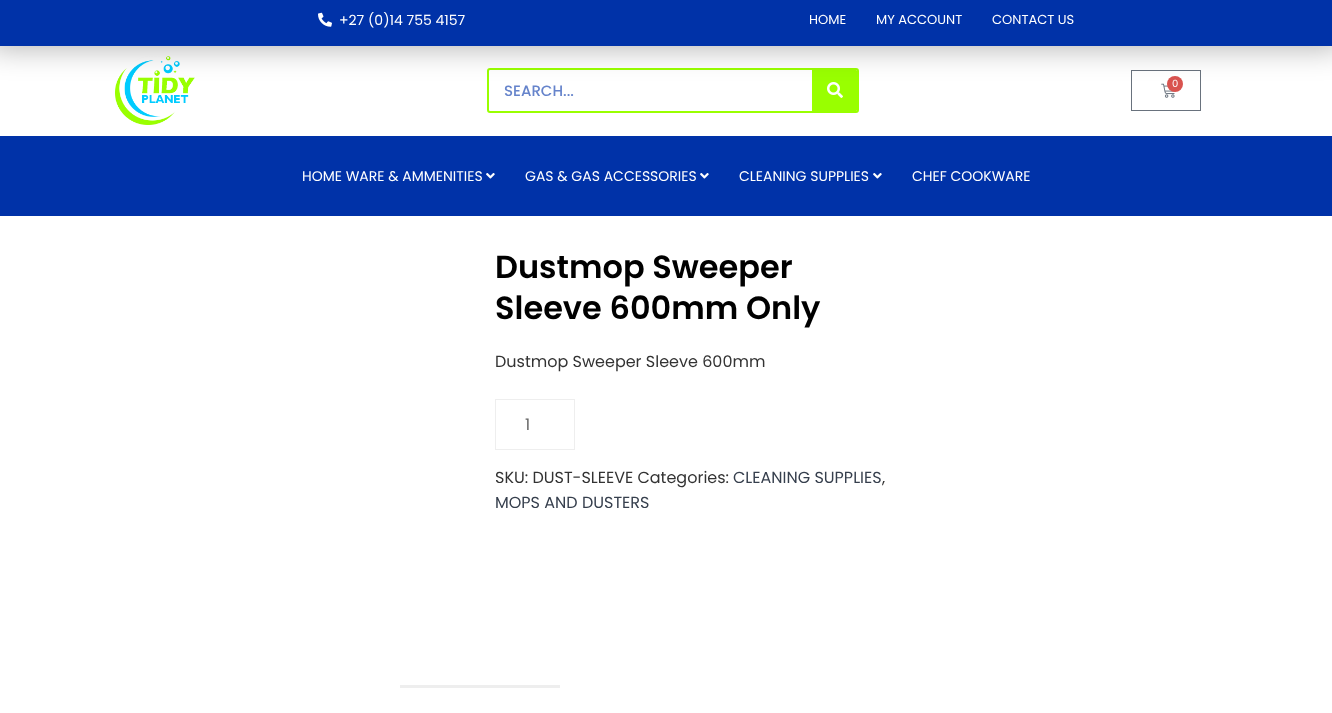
<svg xmlns="http://www.w3.org/2000/svg" width="1332" height="713" viewBox="0 0 1332 713">
  <style>
    .t1 { font: 14px Poppins; fill: #fff; }
    .t2 { font: 13px Poppins; fill: #fff; }
    .t3 { font: 10px Poppins; fill: #fff; }
    .t4 { font: 500 15px Poppins; fill: #6684cb; }
    .t5 { font: 600 32px Poppins; fill: #000; }
    .t6 { font: 16px Poppins; fill: #333; }
    .t7 { font: 16px Poppins; fill: #666; }
    .t8 { font: 16px Poppins; fill: #363f4d; }
  </style>
  <rect width="100%" height="100%" fill="#fff"/>
  <image x="115" y="56" width="80" height="69" href="images/2.png"/>
  <rect x="1131.5" y="70.5" width="69" height="40" fill="none" stroke="#69727d"/>
  <image x="1161" y="83" width="14" height="15" href="images/3.png"/>
  <circle cx="1175" cy="84" r="8" fill="#d9534f"/>
  <rect x="488" y="69" width="370" height="43" rx="2" fill="none" stroke="#9f0" stroke-width="2"/>
  <path d="M812 70H856C856.5 70 857 70.5 857 71V110C857 110.5 856.5 111 856 111H812Z" fill="#9f0"/>
  <image x="827" y="82" width="16" height="16" href="images/4.png"/>
  <rect x="-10" y="-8" width="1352" height="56" fill="#0000004d" filter="blur(15px)"/>
  <rect x="0" y="0" width="1332" height="46" fill="#0032a8"/>
  <image x="318" y="12" width="14" height="15" href="images/1.png"/>
  <text x="339" y="25" class="t1">+27 (0)14 755 4157</text>
  <text x="809" y="24" class="t2">HOME</text>
  <text x="876" y="24" class="t2">MY ACCOUNT</text>
  <text x="992" y="24" class="t2">CONTACT US</text>
  <text x="1172" y="87" class="t3">0</text>
  <text x="504" y="96" class="t4">SEARCH...</text>
  <rect x="0" y="136" width="1332" height="80" fill="#0032a8"/>
  <text x="302" y="181" class="t1">HOME WARE &amp; AMMENITIES</text>
  <image x="486" y="173" width="9" height="6" href="images/5.png"/>
  <text x="525" y="181" class="t1">GAS &amp; GAS ACCESSORIES</text>
  <image x="700" y="173" width="9" height="6" href="images/5.png"/>
  <text x="739" y="181" class="t1">CLEANING SUPPLIES</text>
  <image x="873" y="173" width="9" height="6" href="images/5.png"/>
  <text x="912" y="181" class="t1">CHEF COOKWARE</text>
  <text x="495" y="278" class="t5">Dustmop Sweeper</text>
  <text x="495" y="319" class="t5">Sleeve 600mm Only</text>
  <text x="495" y="367" class="t6">Dustmop Sweeper Sleeve 600mm</text>
  <rect x="495.5" y="399.5" width="79" height="50" fill="none" stroke="#eee"/>
  <text x="525" y="430" class="t7">1</text>
  <text x="495" y="483" class="t6">SKU: DUST-SLEEVE Categories:</text>
  <text x="733" y="483" class="t8">CLEANING SUPPLIES</text>
  <text x="882" y="483" class="t6">,</text>
  <text x="495" y="508" class="t8">MOPS AND DUSTERS</text>
  <rect x="400" y="685" width="160" height="3" fill="#eee"/>
</svg>
